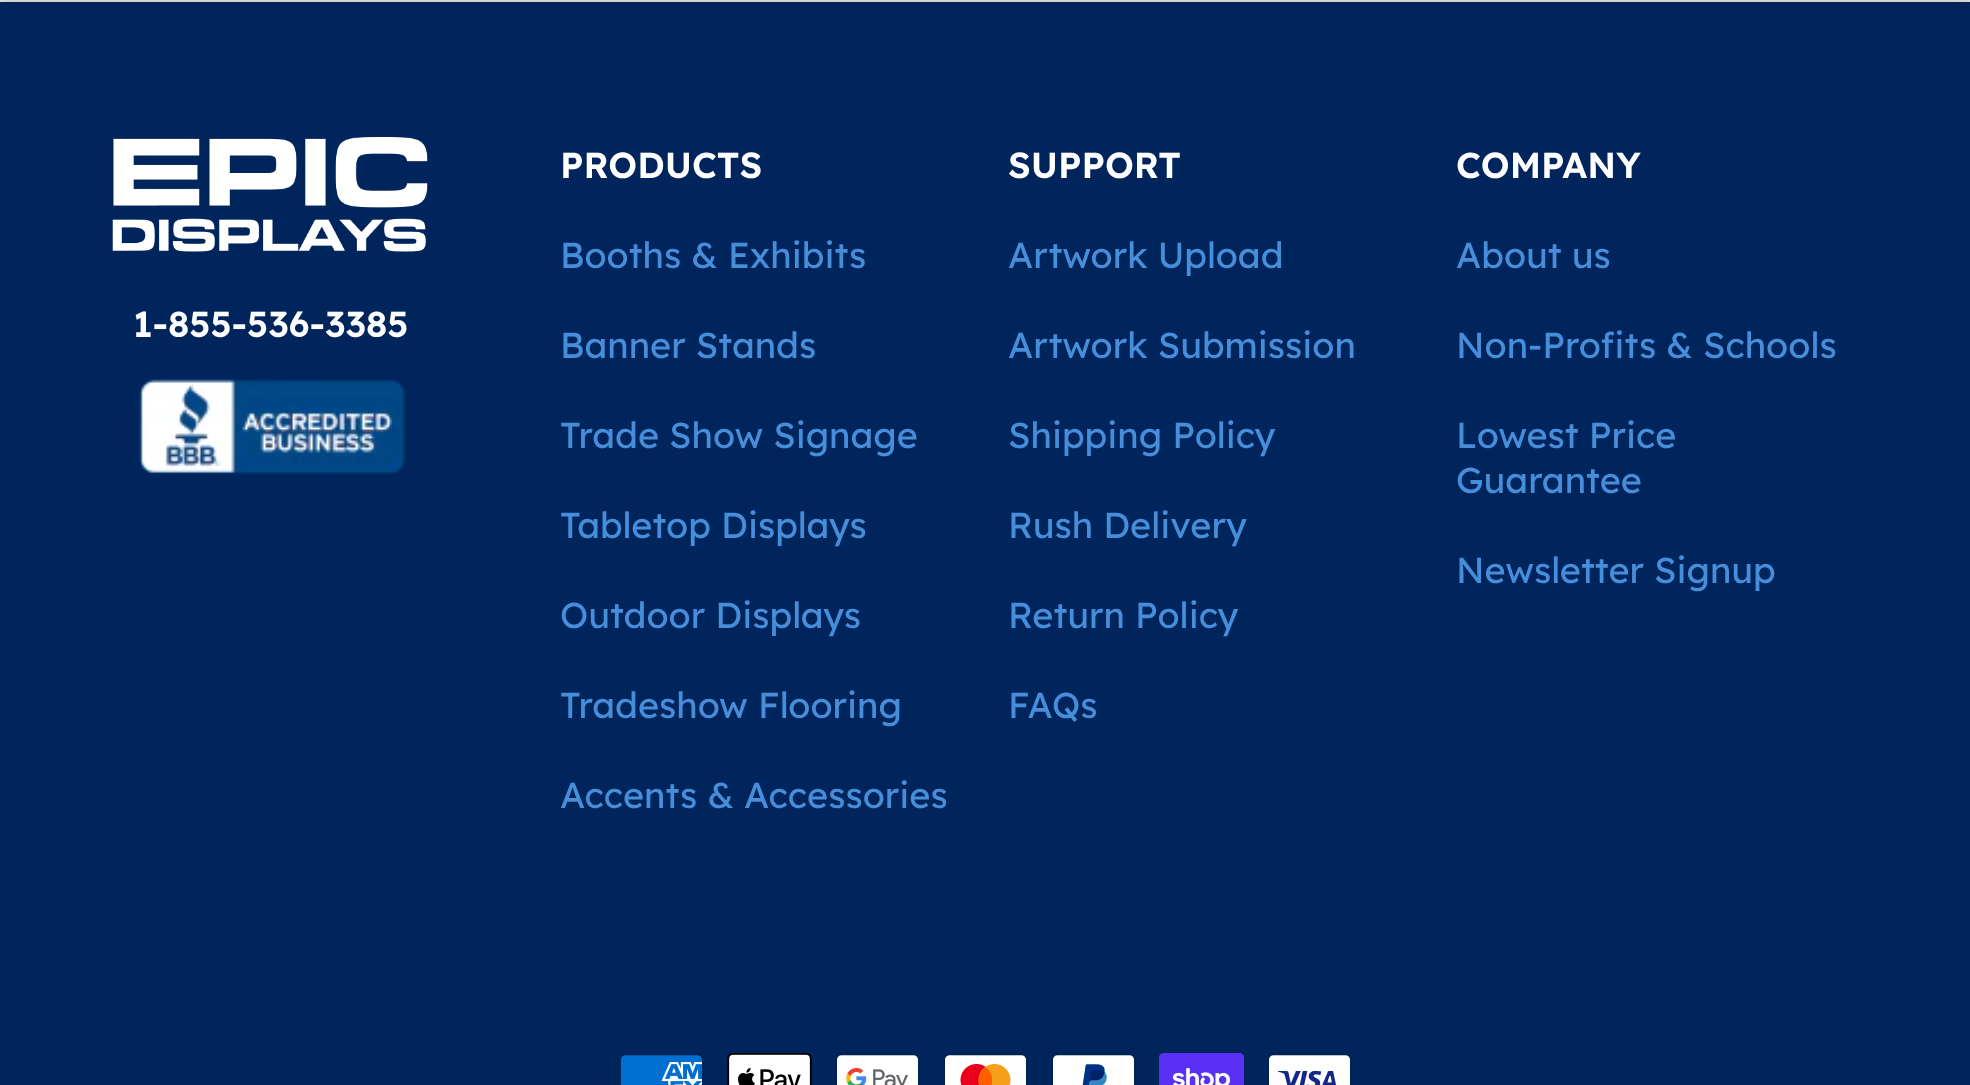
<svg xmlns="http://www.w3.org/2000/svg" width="1970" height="1085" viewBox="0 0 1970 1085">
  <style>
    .t1 { font: 600 36px Lexend; fill: #fff; }
    .t2 { font: 36px Lexend; fill: #478eda; }
  </style>
  <rect width="100%" height="100%" fill="#00255c"/>
  <rect x="0" y="0" width="1970" height="2" fill="#e9e9e9"/>
  <rect x="0" y="-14" width="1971" height="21" fill="#0000001a" filter="blur(4.5px)"/>
  <image x="112" y="137" width="316" height="115" href="images/1.png"/>
  <text x="133" y="337" class="t1">1-855-536-3385</text>
  <image x="139" y="379" width="267" height="96" href="images/2.png"/>
  <text x="560" y="178" class="t1">PRODUCTS</text>
  <text x="560" y="268" class="t2">Booths &amp; Exhibits</text>
  <text x="560" y="358" class="t2">Banner Stands</text>
  <text x="560" y="448" class="t2">Trade Show Signage</text>
  <text x="560" y="538" class="t2">Tabletop Displays</text>
  <text x="560" y="628" class="t2">Outdoor Displays</text>
  <text x="560" y="718" class="t2">Tradeshow Flooring</text>
  <text x="560" y="808" class="t2">Accents &amp; Accessories</text>
  <text x="1008" y="178" class="t1">SUPPORT</text>
  <text x="1008" y="268" class="t2">Artwork Upload</text>
  <text x="1008" y="358" class="t2">Artwork Submission</text>
  <text x="1008" y="448" class="t2">Shipping Policy</text>
  <text x="1008" y="538" class="t2">Rush Delivery</text>
  <text x="1008" y="628" class="t2">Return Policy</text>
  <text x="1008" y="718" class="t2">FAQs</text>
  <text x="1456" y="178" class="t1">COMPANY</text>
  <text x="1456" y="268" class="t2">About us</text>
  <text x="1456" y="358" class="t2">Non-Profits &amp; Schools</text>
  <text x="1456" y="448" class="t2">Lowest Price</text>
  <text x="1456" y="493" class="t2">Guarantee</text>
  <text x="1456" y="583" class="t2">Newsletter Signup</text>
  <image x="619" y="1053" width="85" height="32" href="images/3.png"/>
  <image x="727" y="1053" width="85" height="32" href="images/4.png"/>
  <image x="835" y="1053" width="85" height="32" href="images/5.png"/>
  <image x="943" y="1053" width="85" height="32" href="images/6.png"/>
  <image x="1051" y="1053" width="85" height="32" href="images/7.png"/>
  <image x="1159" y="1053" width="85" height="32" href="images/8.png"/>
  <image x="1267" y="1053" width="85" height="32" href="images/9.png"/>
</svg>
